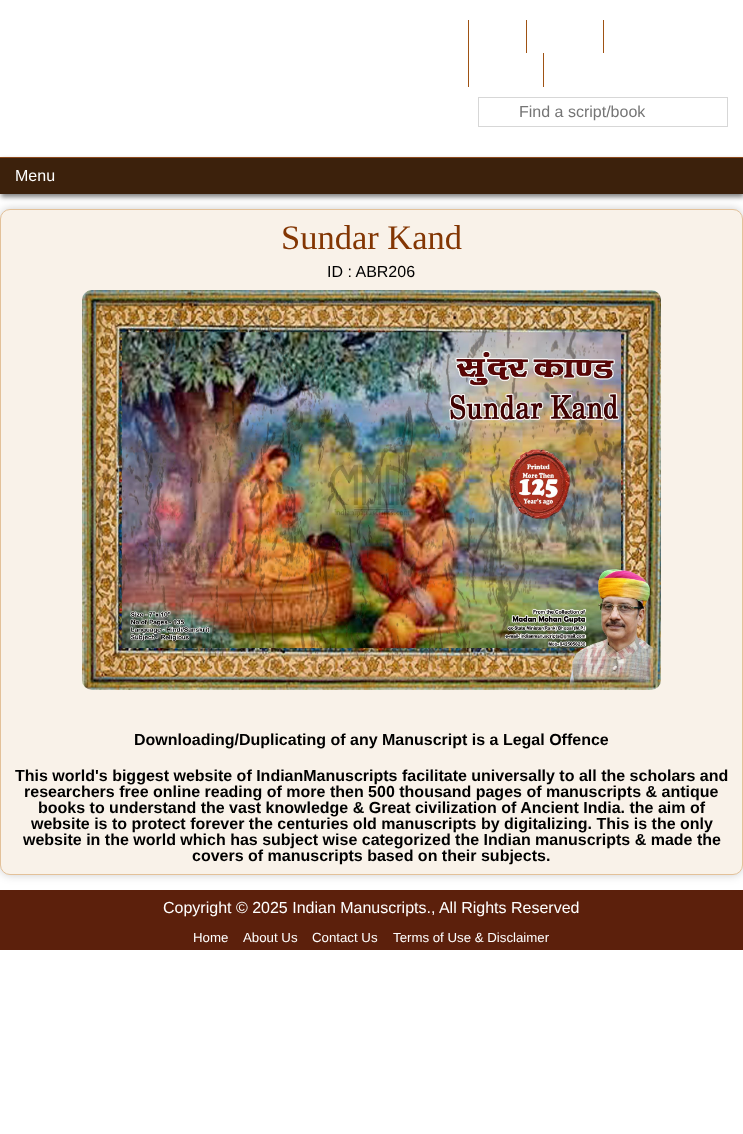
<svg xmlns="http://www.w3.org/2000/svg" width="743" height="1134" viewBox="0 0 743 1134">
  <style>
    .t1 { font: 16px Liberation Sans; fill: #757575; }
    .t2 { font: 16px Liberation Sans; fill: #fff; }
    .t3 { font: 34.5px Liberation Serif; fill: #833603; }
    .t4 { font: 16px Liberation Sans; fill: #000; }
    .t5 { font: bold 16px Liberation Sans; fill: #000; }
    .t6 { font: 13.25px Liberation Sans; fill: #fff; }
  </style>
  <rect width="100%" height="100%" fill="#fff"/>
  <rect x="468" y="20" width="1" height="67" fill="#9f5213"/>
  <rect x="526" y="20" width="1" height="33" fill="#9f5213"/>
  <rect x="603" y="20" width="1" height="33" fill="#9f5213"/>
  <rect x="543" y="53" width="1" height="34" fill="#9f5213"/>
  <rect x="478.5" y="97.5" width="249" height="29" fill="none" stroke="#d7d7d7"/>
  <text x="519" y="117" class="t1">Find a script/book</text>
  <rect x="1" y="160" width="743" height="37" fill="#00000080" filter="blur(2.5px)"/>
  <rect x="0" y="209" width="743" height="666" rx="10" fill="#00000033" filter="blur(5px)"/>
  <rect x="0" y="158" width="743" height="36" fill="#3c210c"/>
  <rect x="0" y="157" width="743" height="1" fill="#8d4a1d"/>
  <text x="15" y="181" class="t2">Menu</text>
  <rect x="0.5" y="209.5" width="742" height="665" rx="9.5" fill="#f9f2e9" stroke="#e3c199"/>
  <text x="281" y="249" class="t3">Sundar Kand</text>
  <text x="327" y="277" class="t4">ID : ABR206</text>
  <image x="82" y="290" width="579" height="400" href="images/1.png"/>
  <text x="134" y="745" class="t5">Downloading/Duplicating of any Manuscript is a Legal Offence</text>
  <text x="15" y="781" class="t5">This world's biggest website of IndianManuscripts facilitate universally to all the scholars and</text>
  <text x="24" y="797" class="t5">researchers free online reading of more then 500 thousand pages of manuscripts &amp; antique</text>
  <text x="38" y="813" class="t5">books to understand the vast knowledge &amp; Great civilization of Ancient India. the aim of</text>
  <text x="31" y="829" class="t5">website is to protect forever the centuries old manuscripts by digitalizing. This is the only</text>
  <text x="23" y="845" class="t5">website in the world which has subject wise categorized the Indian manuscripts &amp; made the</text>
  <text x="192" y="861" class="t5">covers of manuscripts based on their subjects.</text>
  <rect x="0" y="890" width="743" height="60" fill="#5c200c"/>
  <text x="163" y="913" class="t2">Copyright © 2025 Indian Manuscripts., All Rights Reserved</text>
  <text x="193" y="942" class="t6">Home</text>
  <text x="243" y="942" class="t6">About Us</text>
  <text x="312" y="942" class="t6">Contact Us</text>
  <text x="393" y="942" class="t6">Terms of Use &amp; Disclaimer</text>
</svg>
